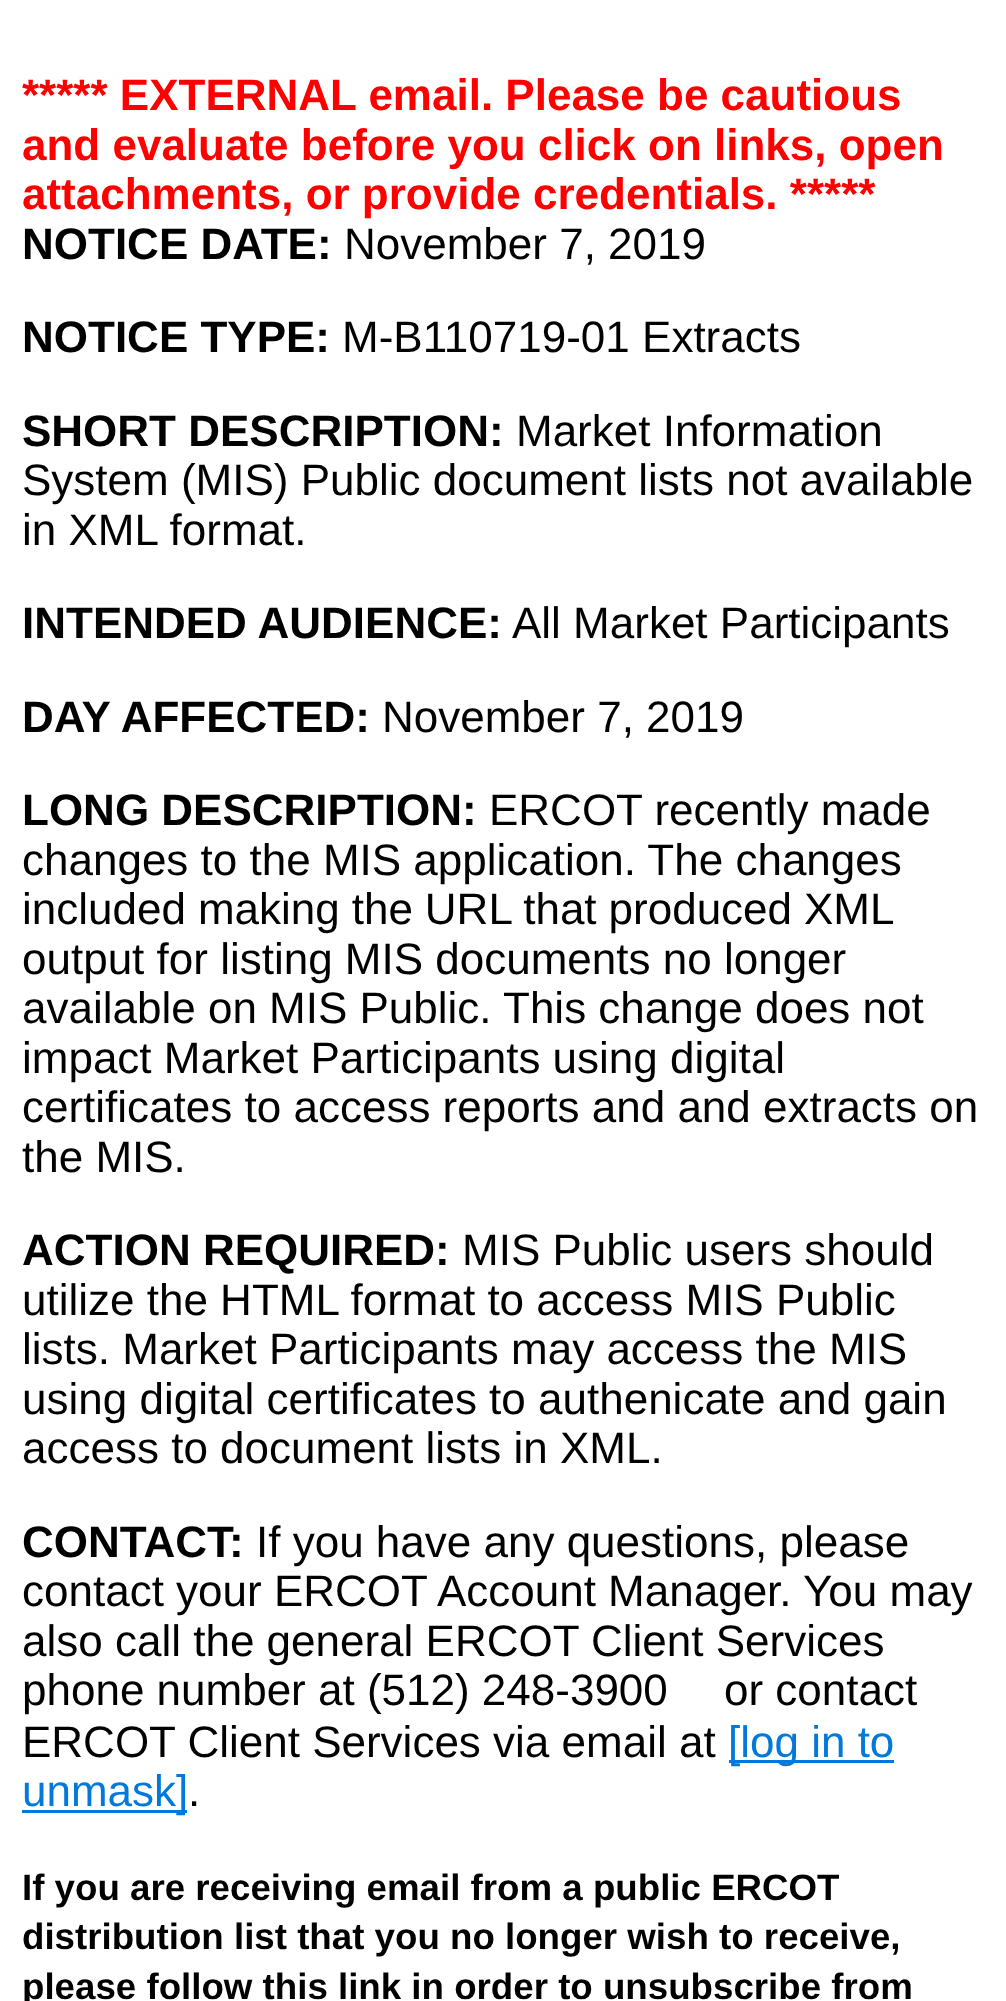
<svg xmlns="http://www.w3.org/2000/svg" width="1006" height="2001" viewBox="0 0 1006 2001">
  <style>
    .t1 { font: bold 44px Liberation Sans; fill: #f00; }
    .t2 { font: bold 44px Liberation Sans; fill: #000; }
    .t3 { font: 44px Liberation Sans; fill: #000; }
    .t4 { font: 44px Liberation Sans; fill: #0079db; }
    .t5 { font: bold 36.7px Liberation Sans; fill: #000; }
  </style>
  <rect width="100%" height="100%" fill="#fff"/>
  <text x="22" y="110" class="t1">***** EXTERNAL email. Please be cautious</text>
  <text x="22" y="160" class="t1">and evaluate before you click on links, open</text>
  <text x="22" y="209" class="t1">attachments, or provide credentials. *****</text>
  <text x="22" y="259" class="t2">NOTICE DATE:</text>
  <text x="344" y="259" class="t3">November 7, 2019</text>
  <text x="22" y="352" class="t2">NOTICE TYPE:</text>
  <text x="342" y="352" class="t3">M-B110719-01 Extracts</text>
  <text x="22" y="446" class="t2">SHORT DESCRIPTION:</text>
  <text x="516" y="446" class="t3">Market Information</text>
  <text x="22" y="495" class="t3">System (MIS) Public document lists not available</text>
  <text x="22" y="545" class="t3">in XML format.</text>
  <text x="22" y="638" class="t2">INTENDED AUDIENCE:</text>
  <text x="512" y="638" class="t3">All Market Participants</text>
  <text x="22" y="732" class="t2">DAY AFFECTED:</text>
  <text x="382" y="732" class="t3">November 7, 2019</text>
  <text x="22" y="825" class="t2">LONG DESCRIPTION:</text>
  <text x="489" y="825" class="t3">ERCOT recently made</text>
  <text x="22" y="875" class="t3">changes to the MIS application. The changes</text>
  <text x="22" y="924" word-spacing="-0.25" class="t3">included making the URL that produced XML</text>
  <text x="22" y="974" class="t3">output for listing MIS documents no longer</text>
  <text x="22" y="1023" class="t3">available on MIS Public. This change does not</text>
  <text x="22" y="1073" class="t3">impact Market Participants using digital</text>
  <text x="22" y="1122" class="t3">certificates to access reports and and extracts on</text>
  <text x="22" y="1172" class="t3">the MIS.</text>
  <text x="22" y="1265" class="t2">ACTION REQUIRED:</text>
  <text x="462" y="1265" class="t3">MIS Public users should</text>
  <text x="22" y="1315" class="t3">utilize the HTML format to access MIS Public</text>
  <text x="22" y="1364" class="t3">lists. Market Participants may access the MIS</text>
  <text x="22" y="1414" class="t3">using digital certificates to authenicate and gain</text>
  <text x="22" y="1463" class="t3">access to document lists in XML.</text>
  <text x="22" y="1557" class="t2">CONTACT:</text>
  <text x="256" y="1557" class="t3">If you have any questions, please</text>
  <text x="22" y="1606" class="t3">contact your ERCOT Account Manager. You may</text>
  <text x="22" y="1656" class="t3">also call the general ERCOT Client Services</text>
  <text x="22" y="1705" class="t3">phone number at (512) 248-3900</text>
  <text x="724" y="1705" class="t3">or contact</text>
  <text x="22" y="1757" class="t3">ERCOT Client Services via email at</text>
  <rect x="729" y="1760" width="165" height="3" fill="#0079db"/>
  <text x="728" y="1757" class="t4">[log in to</text>
  <rect x="22" y="1810" width="165" height="3" fill="#0079db"/>
  <text x="22" y="1806" class="t4">unmask]</text>
  <text x="188" y="1806" class="t3">.</text>
  <text x="22" y="1900" class="t5">If you are receiving email from a public ERCOT</text>
  <text x="22" y="1949" class="t5">distribution list that you no longer wish to receive,</text>
  <text x="22" y="1999" class="t5">please follow this link in order to unsubscribe from</text>
</svg>
